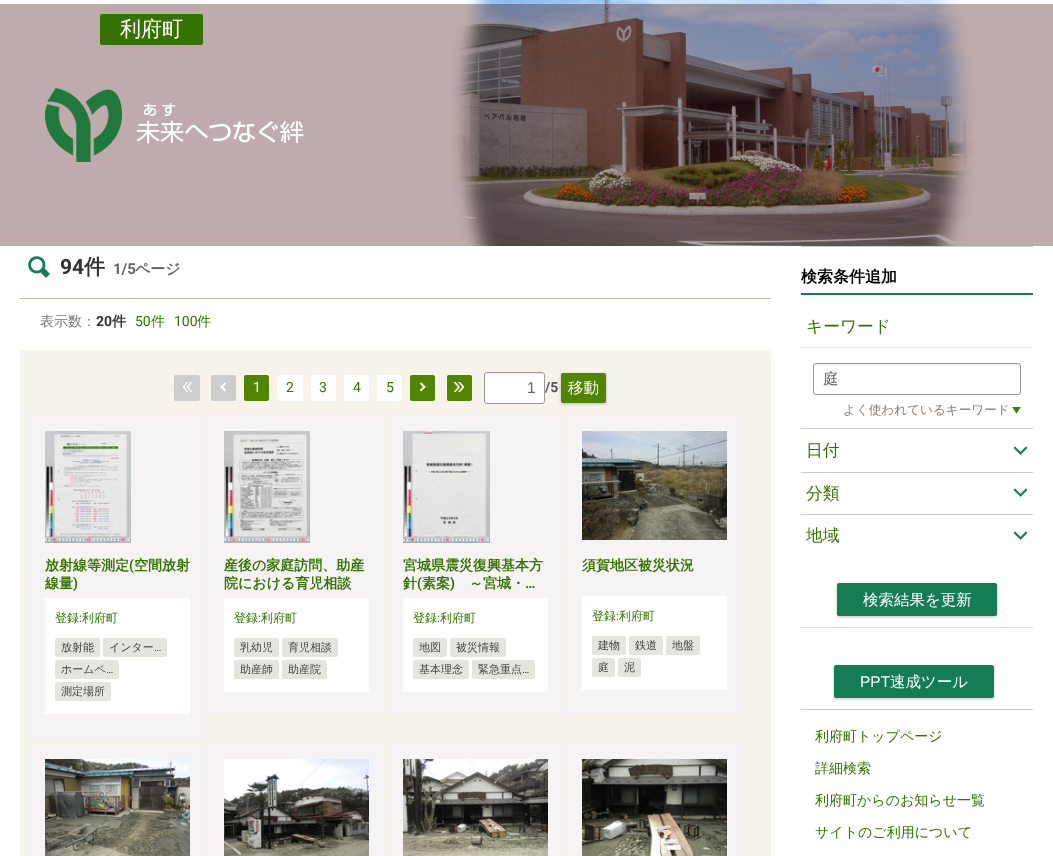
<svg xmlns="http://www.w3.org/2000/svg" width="1053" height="856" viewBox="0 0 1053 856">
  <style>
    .t1 { font: 500 21px WenQuanYi Zen Hei; fill: #fff; }
    .t2 { font: bold 21px Roboto; fill: #333; }
    .t3 { font: bold 21px WenQuanYi Zen Hei; fill: #333; }
    .t4 { font: bold 15px Roboto; fill: #666; }
    .t5 { font: bold 15px WenQuanYi Zen Hei; fill: #666; }
    .t6 { font: 500 14px WenQuanYi Zen Hei; fill: #777; }
    .t7 { font: bold 14px Roboto; fill: #333; }
    .t8 { font: bold 14px WenQuanYi Zen Hei; fill: #333; }
    .t9 { font: 14px Roboto; fill: #357300; }
    .t10 { font: 500 14px WenQuanYi Zen Hei; fill: #357300; }
    .t11 { font: 14px Roboto; fill: #fff; }
    .t12 { font: 15.5px Liberation Sans; fill: #666; }
    .t13 { font: bold 14px Roboto; fill: #555; }
    .t14 { font: 500 15.5px WenQuanYi Zen Hei; fill: #fff; }
    .t15 { font: bold 14px WenQuanYi Zen Hei; fill: #357300; }
    .t16 { font: bold 14px Roboto; fill: #357300; }
    .t17 { font: 500 12px WenQuanYi Zen Hei; fill: #357300; }
    .t18 { font: 12px Roboto; fill: #357300; }
    .t19 { font: 500 11px WenQuanYi Zen Hei; fill: #444; }
    .t20 { font: 11px Roboto; fill: #444; }
    .t21 { font: bold 16px WenQuanYi Zen Hei; fill: #000; }
    .t22 { font: 500 16.75px WenQuanYi Zen Hei; fill: #357300; }
    .t23 { font: 500 15.5px WenQuanYi Zen Hei; fill: #666; }
    .t24 { font: 500 12.6px WenQuanYi Zen Hei; fill: #877d76; }
    .t25 { font: 15.5px Liberation Sans; fill: #fff; }
  </style>
  <rect width="100%" height="100%" fill="#fff"/>
  <image x="0" y="0" width="1053" height="246" href="images/1.png"/>
  <rect x="100" y="14" width="103" height="31" rx="2" fill="#357300"/>
  <text x="120" y="36" class="t1">利府町</text>
  <image x="45" y="88" width="259" height="74" href="images/2.png"/>
  <rect x="20" y="298" width="751" height="1" fill="#bfb9b2"/>
  <image x="28" y="256" width="22" height="22" href="images/3.png"/>
  <text x="60" y="274" class="t2">94</text>
  <text x="84" y="274" class="t3">件</text>
  <text x="113" y="274" class="t4">1/5</text>
  <text x="135" y="274" class="t5">ページ</text>
  <text x="40" y="326" class="t6">表示数：</text>
  <text x="96" y="326" class="t7">20</text>
  <text x="112" y="326" class="t8">件</text>
  <text x="135" y="326" class="t9">50</text>
  <text x="151" y="326" class="t10">件</text>
  <text x="174" y="326" class="t9">100</text>
  <text x="197" y="326" class="t10">件</text>
  <rect x="20" y="350" width="751" height="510" rx="4" fill="#f7f3eb"/>
  <rect x="174" y="375" width="26" height="26" rx="2" fill="#ccc"/>
  <image x="183" y="382" width="9" height="10" href="images/4.png"/>
  <rect x="211" y="375" width="25" height="26" rx="2" fill="#ccc"/>
  <image x="220" y="382" width="6" height="10" href="images/5.png"/>
  <rect x="244" y="375" width="25" height="26" rx="2" fill="#518400"/>
  <text x="253" y="392" class="t11">1</text>
  <rect x="277" y="375" width="26" height="26" rx="2" fill="#fff"/>
  <text x="286" y="392" class="t9">2</text>
  <rect x="311" y="375" width="25" height="26" rx="2" fill="#fff"/>
  <text x="319" y="392" class="t9">3</text>
  <rect x="344" y="375" width="25" height="26" rx="2" fill="#fff"/>
  <text x="353" y="392" class="t9">4</text>
  <rect x="377" y="375" width="25" height="26" rx="2" fill="#fff"/>
  <text x="386" y="392" class="t9">5</text>
  <rect x="410" y="375" width="25" height="26" rx="2" fill="#518400"/>
  <image x="419" y="382" width="7" height="10" href="images/6.png"/>
  <rect x="447" y="375" width="25" height="26" rx="2" fill="#518400"/>
  <image x="454" y="382" width="10" height="10" href="images/7.png"/>
  <rect x="484" y="372" width="61" height="32" rx="3" fill="#fff"/>
  <path d="M487 374H542C543 374 544 375 544 376C544 371 537 373 533 373H496C492 373 485 371 485 376C485 375 486 374 487 374Z" fill="#ececec"/>
  <rect x="484.5" y="372.5" width="60" height="31" rx="2.5" fill="none" stroke="#999"/>
  <text x="527" y="393" class="t12">1</text>
  <text x="545" y="392" class="t13">/5</text>
  <rect x="561" y="374" width="45" height="30" rx="2" fill="#00000040" filter="blur(1.5px)"/>
  <rect x="561" y="373" width="45" height="30" rx="2" fill="#518400"/>
  <text x="568" y="393" class="t14">移動</text>
  <rect x="30" y="416" width="175" height="323" rx="3" fill="#f5f3f4"/>
  <image x="45" y="431" width="86" height="112" href="images/8.png"/>
  <text x="45" y="570" class="t15">放射線等測定</text>
  <text x="129" y="570" class="t16">(</text>
  <text x="134" y="570" class="t15">空間放射</text>
  <text x="45" y="588" class="t15">線量</text>
  <text x="73" y="588" class="t16">)</text>
  <rect x="45" y="598" width="145" height="116" fill="#fff"/>
  <text x="55" y="622" class="t17">登録</text>
  <text x="79" y="622" class="t18">:</text>
  <text x="82" y="622" class="t17">利府町</text>
  <rect x="55" y="638" width="45" height="19" rx="2" fill="#e5e5e0"/>
  <text x="61" y="651" class="t19">放射能</text>
  <rect x="103" y="638" width="64" height="19" rx="2" fill="#e5e5e0"/>
  <text x="109" y="651" class="t19">インター</text>
  <text x="154" y="651" class="t20">…</text>
  <rect x="55" y="660" width="64" height="19" rx="2" fill="#e5e5e0"/>
  <text x="61" y="673" class="t19">ホームペ</text>
  <text x="106" y="673" class="t20">…</text>
  <rect x="55" y="682" width="56" height="19" rx="2" fill="#e5e5e0"/>
  <text x="61" y="695" class="t19">測定場所</text>
  <rect x="209" y="416" width="175" height="301" rx="3" fill="#f5f3f4"/>
  <image x="224" y="431" width="86" height="112" href="images/9.png"/>
  <text x="224" y="570" class="t15">産後の家庭訪問、助産</text>
  <text x="224" y="588" class="t15">院における育児相談</text>
  <rect x="224" y="598" width="145" height="94" fill="#fff"/>
  <text x="234" y="622" class="t17">登録</text>
  <text x="258" y="622" class="t18">:</text>
  <text x="261" y="622" class="t17">利府町</text>
  <rect x="234" y="638" width="45" height="19" rx="2" fill="#e5e5e0"/>
  <text x="240" y="651" class="t19">乳幼児</text>
  <rect x="282" y="638" width="56" height="19" rx="2" fill="#e5e5e0"/>
  <text x="288" y="651" class="t19">育児相談</text>
  <rect x="234" y="660" width="45" height="19" rx="2" fill="#e5e5e0"/>
  <text x="240" y="673" class="t19">助産師</text>
  <rect x="282" y="660" width="45" height="19" rx="2" fill="#e5e5e0"/>
  <text x="288" y="673" class="t19">助産院</text>
  <rect x="388" y="416" width="175" height="301" rx="3" fill="#f5f3f4"/>
  <image x="403" y="431" width="87" height="112" href="images/10.png"/>
  <text x="403" y="570" class="t15">宮城県震災復興基本方</text>
  <text x="403" y="588" class="t15">針</text>
  <text x="417" y="588" class="t16">(</text>
  <text x="422" y="588" class="t15">素案</text>
  <text x="450" y="588" class="t16">)</text>
  <text x="469" y="588" class="t15">～宮城・</text>
  <text x="525" y="588" class="t16">…</text>
  <rect x="403" y="598" width="145" height="94" fill="#fff"/>
  <text x="413" y="622" class="t17">登録</text>
  <text x="437" y="622" class="t18">:</text>
  <text x="440" y="622" class="t17">利府町</text>
  <rect x="413" y="638" width="34" height="19" rx="2" fill="#e5e5e0"/>
  <text x="419" y="651" class="t19">地図</text>
  <rect x="450" y="638" width="56" height="19" rx="2" fill="#e5e5e0"/>
  <text x="456" y="651" class="t19">被災情報</text>
  <rect x="413" y="660" width="56" height="19" rx="2" fill="#e5e5e0"/>
  <text x="419" y="673" class="t19">基本理念</text>
  <rect x="472" y="660" width="63" height="19" rx="2" fill="#e5e5e0"/>
  <text x="478" y="673" class="t19">緊急重点</text>
  <text x="522" y="673" class="t20">…</text>
  <rect x="567" y="416" width="175" height="300" rx="3" fill="#f5f3f4"/>
  <image x="582" y="431" width="145" height="109" href="images/11.png"/>
  <text x="582" y="570" class="t15">須賀地区被災状況</text>
  <rect x="582" y="596" width="145" height="94" fill="#fff"/>
  <text x="592" y="620" class="t17">登録</text>
  <text x="616" y="620" class="t18">:</text>
  <text x="619" y="620" class="t17">利府町</text>
  <rect x="592" y="636" width="34" height="19" rx="2" fill="#e5e5e0"/>
  <text x="598" y="649" class="t19">建物</text>
  <rect x="629" y="636" width="34" height="19" rx="2" fill="#e5e5e0"/>
  <text x="635" y="649" class="t19">鉄道</text>
  <rect x="666" y="636" width="34" height="19" rx="2" fill="#e5e5e0"/>
  <text x="672" y="649" class="t19">地盤</text>
  <rect x="592" y="658" width="23" height="19" rx="2" fill="#e5e5e0"/>
  <text x="598" y="671" class="t19">庭</text>
  <rect x="618" y="658" width="23" height="19" rx="2" fill="#e5e5e0"/>
  <text x="624" y="671" class="t19">泥</text>
  <rect x="30" y="744" width="175" height="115" rx="3" fill="#f5f3f4"/>
  <image x="45" y="759" width="145" height="97" href="images/12.png"/>
  <rect x="209" y="744" width="175" height="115" rx="3" fill="#f5f3f4"/>
  <image x="224" y="759" width="145" height="97" href="images/13.png"/>
  <rect x="388" y="744" width="175" height="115" rx="3" fill="#f5f3f4"/>
  <image x="403" y="759" width="145" height="97" href="images/14.png"/>
  <rect x="567" y="744" width="175" height="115" rx="3" fill="#f5f3f4"/>
  <image x="582" y="759" width="145" height="97" href="images/15.png"/>
  <rect x="801" y="246" width="232" height="1" fill="#ccc"/>
  <rect x="801" y="709" width="232" height="1" fill="#ccc"/>
  <rect x="801" y="293" width="232" height="2" fill="#147d55"/>
  <text x="801" y="282" class="t21">検索条件追加</text>
  <rect x="801" y="428" width="232" height="1" fill="#ccc"/>
  <text x="806" y="332" class="t22">キーワード</text>
  <path d="M801 347.5H1033" fill="none" stroke="#ddd" stroke-dasharray="1 1"/>
  <path d="M816 365H1018L1020 366V367C1020 366 1020 364 1018 364H816C814 364 814 366 814 367C814 366 815 365 816 365Z" fill="#ececec"/>
  <rect x="813.5" y="363.5" width="207" height="31" rx="2.5" fill="none" stroke="#999"/>
  <text x="823" y="384" class="t23">庭</text>
  <image x="1012" y="407" width="9" height="7" href="images/16.png"/>
  <text x="843" y="414" class="t24">よく使われているキーワード</text>
  <rect x="801" y="472" width="232" height="1" fill="#ccc"/>
  <image x="1013" y="446" width="15" height="9" href="images/17.png"/>
  <text x="806" y="456" class="t22">日付</text>
  <rect x="801" y="514" width="232" height="1" fill="#ccc"/>
  <image x="1013" y="488" width="15" height="9" href="images/17.png"/>
  <text x="806" y="499" class="t22">分類</text>
  <image x="1013" y="531" width="15" height="9" href="images/17.png"/>
  <text x="806" y="541" class="t22">地域</text>
  <rect x="837" y="584" width="160" height="33" rx="2" fill="#00000040" filter="blur(1.5px)"/>
  <rect x="837" y="583" width="160" height="33" rx="2" fill="#147d55"/>
  <text x="863" y="605" class="t14">検索結果を更新</text>
  <rect x="801" y="627" width="232" height="1" fill="#ddd"/>
  <rect x="834" y="666" width="160" height="33" rx="2" fill="#00000040" filter="blur(1.5px)"/>
  <rect x="834" y="665" width="160" height="33" rx="2" fill="#147d55"/>
  <text x="860" y="687" class="t25">PPT</text>
  <text x="890" y="687" class="t14">速成ツール</text>
  <text x="815" y="741" class="t10">利府町トップページ</text>
  <text x="815" y="773" class="t10">詳細検索</text>
  <text x="815" y="805" class="t10">利府町からのお知らせ一覧</text>
  <text x="815" y="837" class="t10">サイトのご利用について</text>
</svg>
